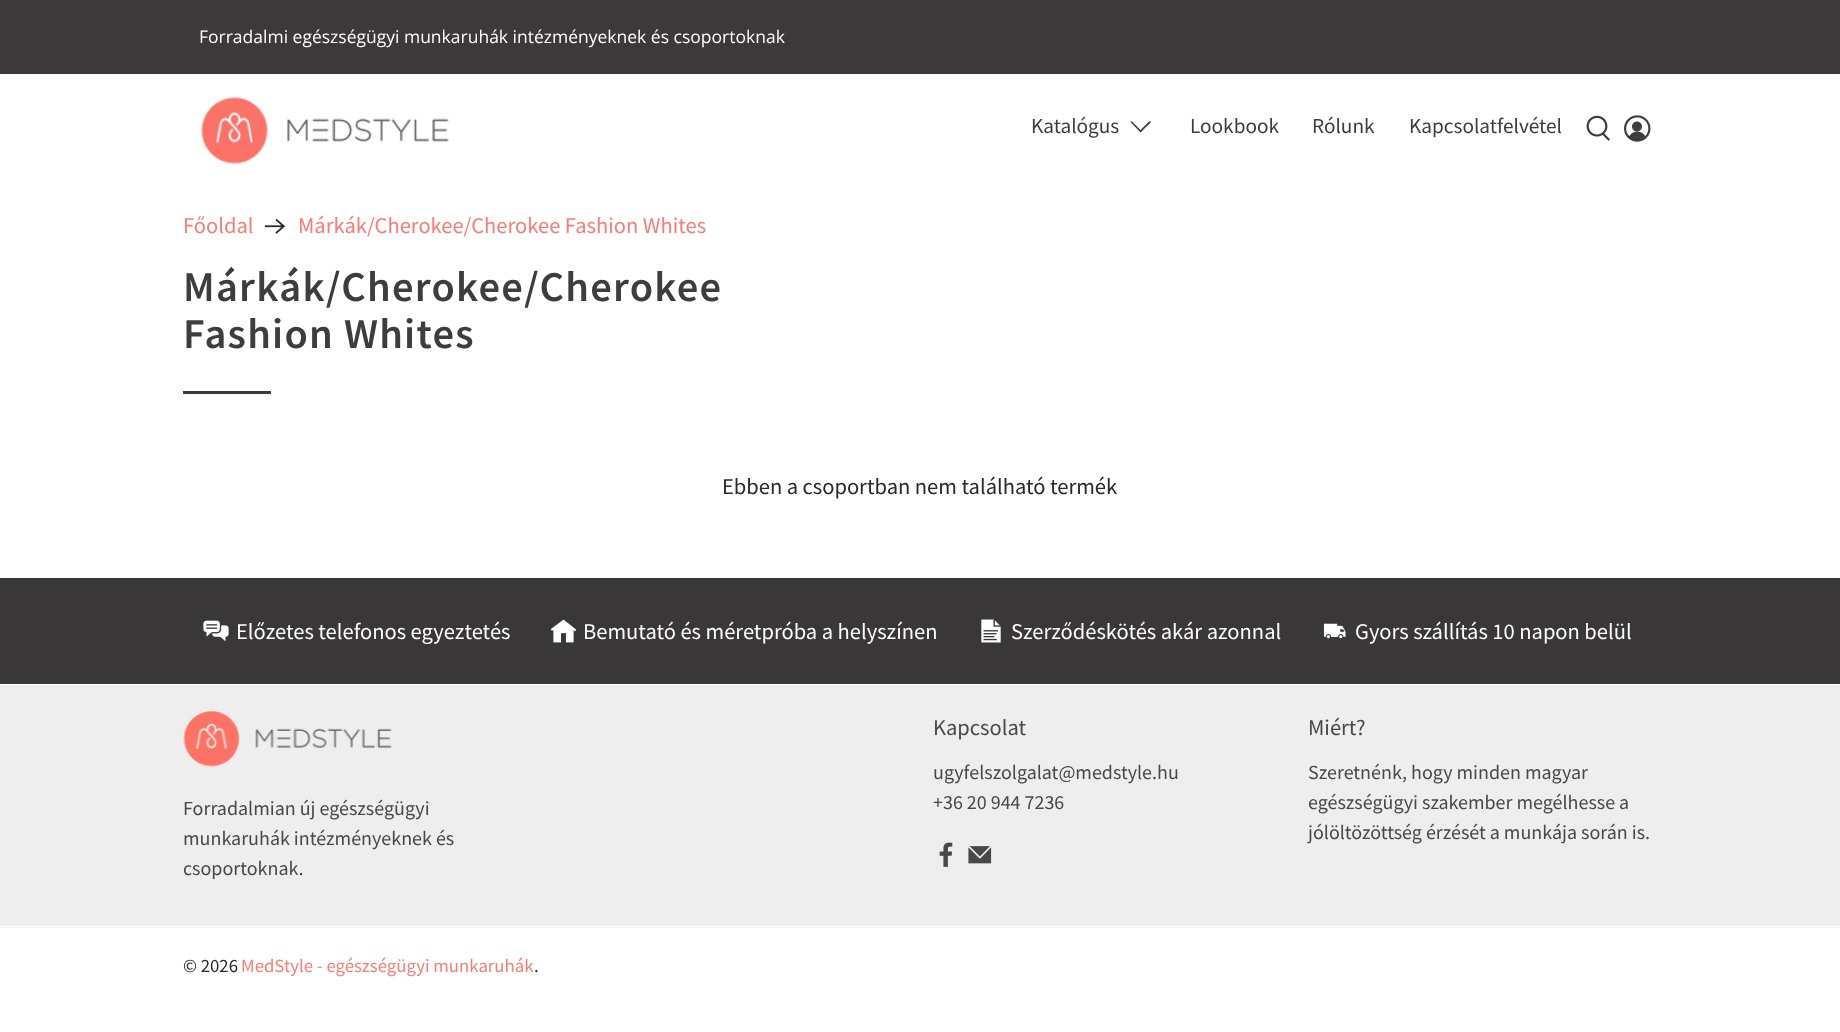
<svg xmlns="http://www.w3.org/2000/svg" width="1840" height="1032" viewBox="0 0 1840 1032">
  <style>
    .t1 { font: 17.5px Open Sans; fill: #fefefe; }
    .t2 { font: 21.25px Source Sans Pro; fill: #3d3d3d; }
    .t3 { font: 22.5px Source Sans Pro; fill: #f97d74; }
    .t4 { font: 600 42.5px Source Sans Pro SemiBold; letter-spacing: 1.25px; fill: #3d3d3d; }
    .t5 { font: 22.5px Source Sans Pro; fill: #282828; }
    .t6 { font: 22.5px Source Sans Pro; fill: #fefefe; }
    .t7 { font: 22.5px Source Sans Pro; fill: #494848; }
    .t8 { font: 20px Source Sans Pro; fill: #494848; }
    .t9 { font: 18.75px Source Sans Pro; fill: #282828; }
    .t10 { font: 18.75px Source Sans Pro; fill: #f97d74; }
  </style>
  <rect width="100%" height="100%" fill="#fff"/>
  <rect x="0" y="0" width="1840" height="74" fill="#3d383a"/>
  <text x="199" y="43" class="t1">Forradalmi egészségügyi munkaruhák intézményeknek és csoportoknak</text>
  <image x="201" y="97" width="248" height="67" href="images/1.png"/>
  <text x="1031" y="133" class="t2">Katalógus</text>
  <path d="M1140.5 132.5L1130.5 122L1131.5 121L1140.5 130L1149.5 121L1151 122Z" fill="#3d3d3d"/>
  <text x="1190" y="133" class="t2">Lookbook</text>
  <text x="1312" y="133" class="t2">Rólunk</text>
  <text x="1409" y="133" class="t2">Kapcsolatfelvétel</text>
  <image x="1586" y="115" width="24" height="26" href="images/2.png"/>
  <image x="1624" y="115" width="27" height="27" href="images/3.png"/>
  <text x="183" y="233" class="t3">Főoldal</text>
  <image x="264" y="218" width="21" height="16" href="images/4.png"/>
  <text x="298" y="233" class="t3">Márkák/Cherokee/Cherokee Fashion Whites</text>
  <text x="183" y="301" class="t4">Márkák/Cherokee/Cherokee</text>
  <text x="183" y="348" class="t4">Fashion Whites</text>
  <rect x="183" y="391" width="88" height="3" fill="#3d3d3d"/>
  <text x="722" y="494" class="t5">Ebben a csoportban nem található termék</text>
  <rect x="0" y="578" width="1840" height="106" fill="#393737"/>
  <image x="203" y="620" width="26" height="22" href="images/5.png"/>
  <text x="236" y="639" class="t6">Előzetes telefonos egyeztetés</text>
  <image x="550" y="619" width="27" height="24" href="images/6.png"/>
  <text x="583" y="639" class="t6">Bemutató és méretpróba a helyszínen</text>
  <image x="981" y="619" width="20" height="24" href="images/7.png"/>
  <text x="1011" y="639" class="t6">Szerződéskötés akár azonnal</text>
  <image x="1323" y="623" width="23" height="16" href="images/8.png"/>
  <text x="1355" y="639" class="t6">Gyors szállítás 10 napon belül</text>
  <rect x="0" y="685" width="1840" height="243" fill="#eee"/>
  <rect x="0" y="926" width="1840" height="1" fill="#fff"/>
  <text x="933" y="735" class="t7">Kapcsolat</text>
  <text x="933" y="779" class="t8">ugyfelszolgalat@medstyle.hu</text>
  <text x="933" y="809" class="t8">+36 20 944 7236</text>
  <image x="939" y="842" width="14" height="25" href="images/9.png"/>
  <image x="968" y="846" width="24" height="18" href="images/10.png"/>
  <text x="1308" y="735" class="t7">Miért?</text>
  <text x="1308" y="779" class="t8">Szeretnénk, hogy minden magyar</text>
  <text x="1308" y="809" class="t8">egészségügyi szakember megélhesse a</text>
  <text x="1308" y="839" class="t8">jólöltözöttség érzését a munkája során is.</text>
  <image x="183" y="711" width="209" height="56" href="images/11.png"/>
  <text x="183" y="815" class="t8">Forradalmian új egészségügyi</text>
  <text x="183" y="845" class="t8">munkaruhák intézményeknek és</text>
  <text x="183" y="875" class="t8">csoportoknak.</text>
  <text x="183" y="972" class="t9">© 2026</text>
  <text x="241" y="972" class="t10">MedStyle - egészségügyi munkaruhák</text>
  <text x="534" y="972" class="t9">.</text>
</svg>
